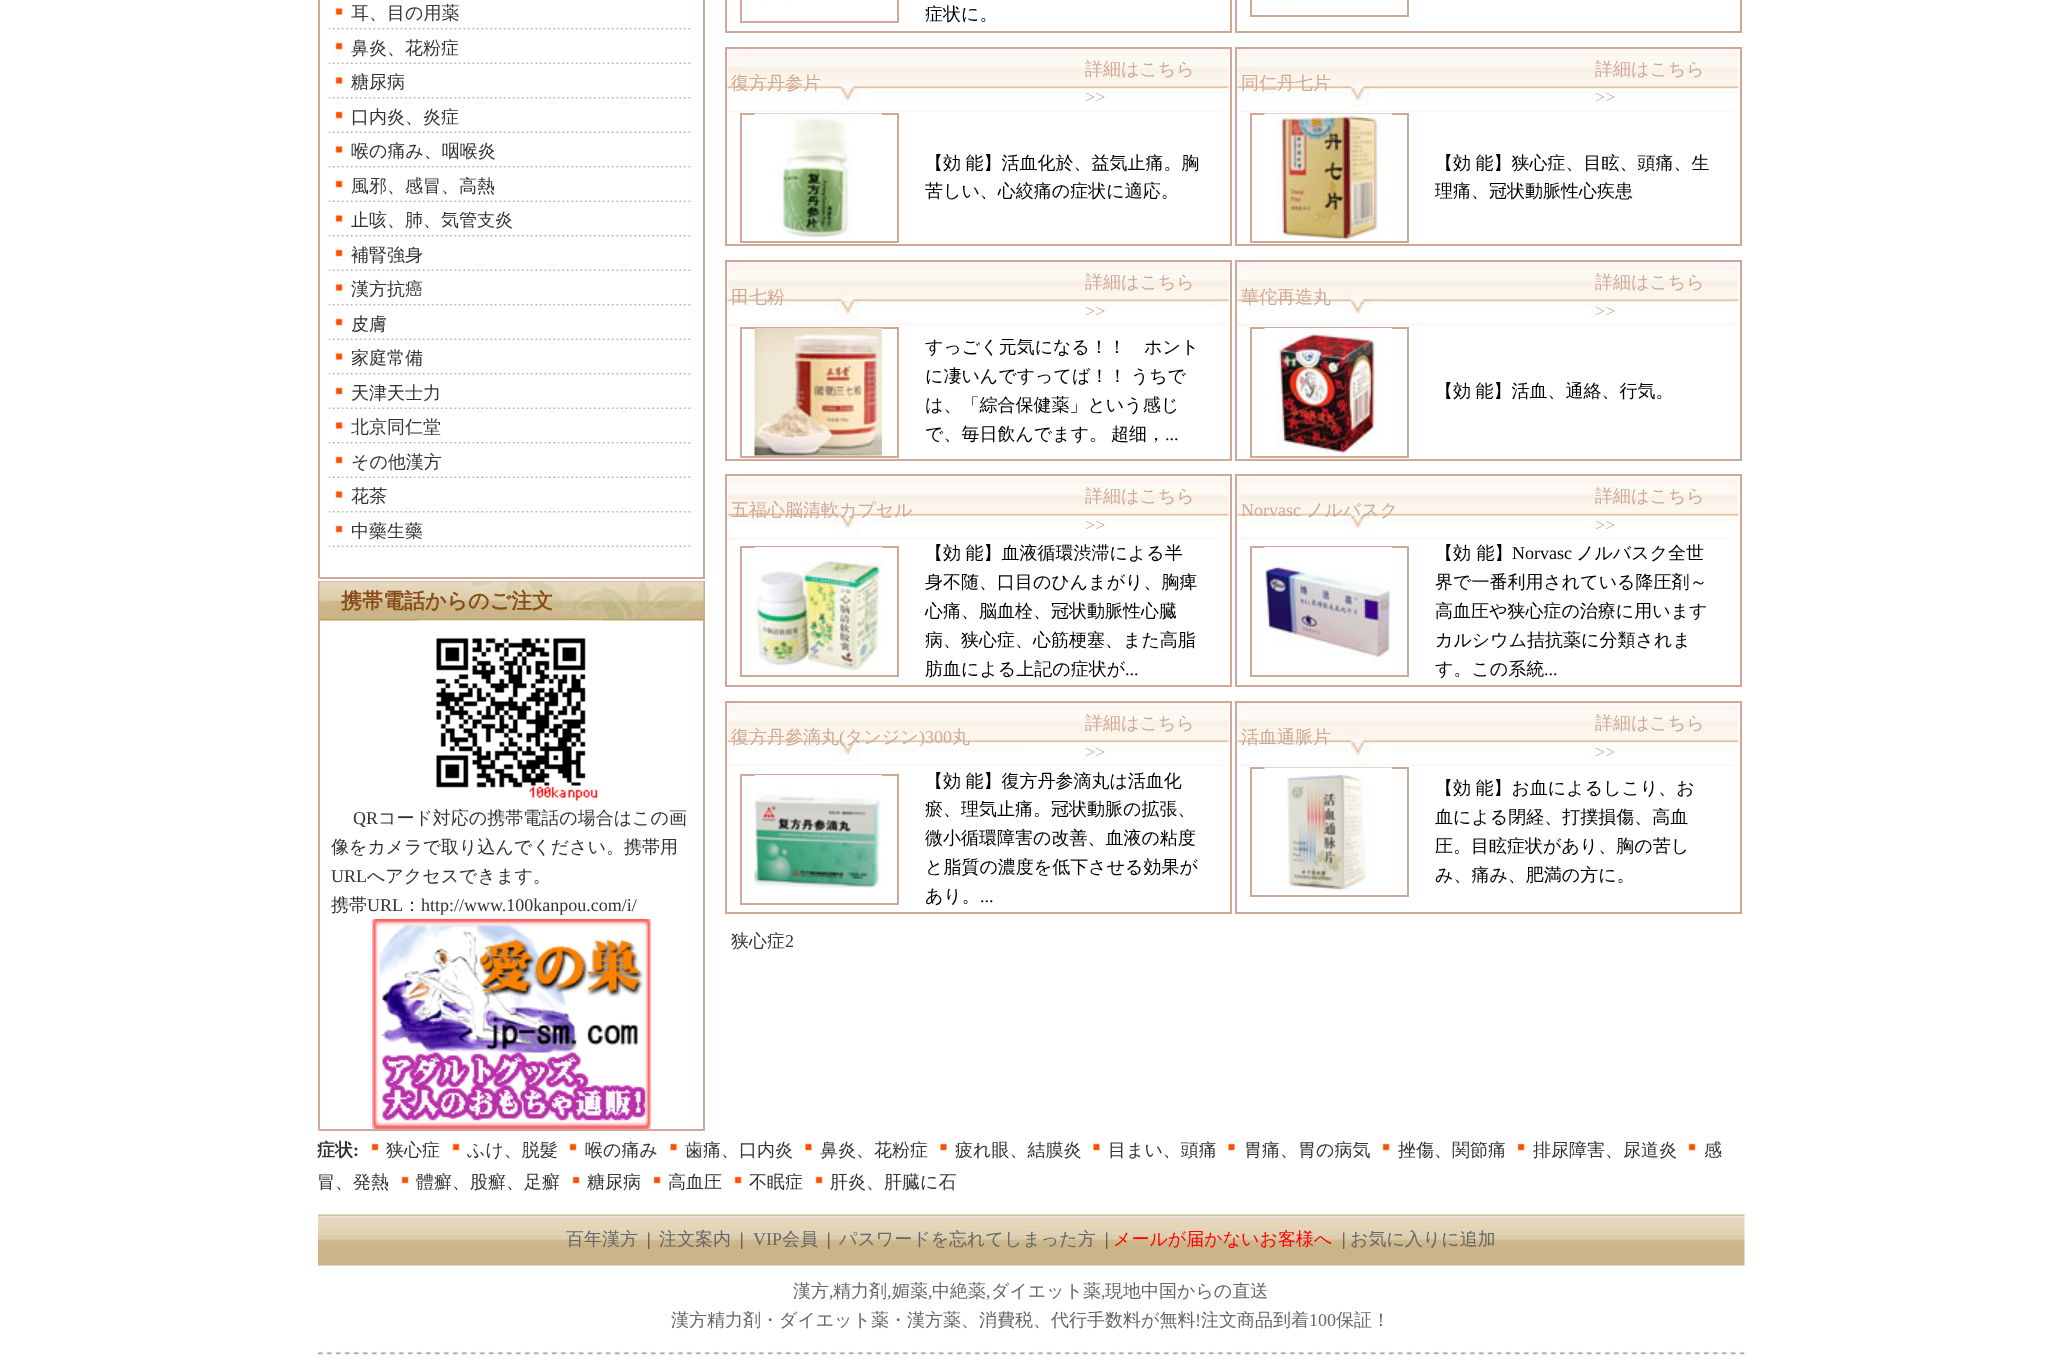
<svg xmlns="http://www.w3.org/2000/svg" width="2061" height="1358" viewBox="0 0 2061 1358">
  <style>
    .t1 { font: 500 18px WenQuanYi Zen Hei; fill: #333; }
    .t2 { font: bold 21px WenQuanYi Zen Hei; fill: #8a4d17; }
    .t3 { font: 18px Liberation Serif; fill: #333; }
    .t4 { font: 500 18px WenQuanYi Zen Hei; fill: #000; }
    .t5 { font: 500 18px WenQuanYi Zen Hei; fill: #cfa897; }
    .t6 { font: 18px Liberation Serif; fill: #cfa897; }
    .t7 { font: 18px Liberation Serif; fill: #000; }
    .t8 { font: bold 18px WenQuanYi Zen Hei; fill: #333; }
    .t9 { font: bold 18px Liberation Serif; fill: #333; }
    .t10 { font: 500 18px WenQuanYi Zen Hei; fill: #666; }
    .t11 { font: 18px Liberation Serif; fill: #666; }
    .t12 { font: 500 18px WenQuanYi Zen Hei; fill: #f00; }
  </style>
  <rect width="100%" height="100%" fill="#fff"/>
  <rect x="319" y="-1" width="385" height="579" fill="none" stroke="#cfa897" stroke-width="2"/>
  <image x="333" y="8" width="12" height="11" href="images/1.png"/>
  <text x="351" y="19" class="t1">耳、目の用薬</text>
  <image x="328" y="28" width="365" height="2" href="images/2.png"/>
  <image x="333" y="42" width="12" height="12" href="images/3.png"/>
  <text x="351" y="54" class="t1">鼻炎、花粉症</text>
  <image x="328" y="62" width="365" height="2" href="images/4.png"/>
  <image x="333" y="77" width="12" height="11" href="images/1.png"/>
  <text x="351" y="88" class="t1">糖尿病</text>
  <image x="328" y="97" width="365" height="2" href="images/5.png"/>
  <image x="333" y="111" width="12" height="12" href="images/3.png"/>
  <text x="351" y="123" class="t1">口内炎、炎症</text>
  <image x="328" y="131" width="365" height="2" href="images/4.png"/>
  <image x="333" y="146" width="12" height="11" href="images/1.png"/>
  <text x="351" y="157" class="t1">喉の痛み、咽喉炎</text>
  <image x="328" y="166" width="365" height="2" href="images/2.png"/>
  <image x="333" y="180" width="12" height="12" href="images/3.png"/>
  <text x="351" y="192" class="t1">風邪、感冒、高熱</text>
  <image x="328" y="200" width="365" height="2" href="images/4.png"/>
  <image x="333" y="215" width="12" height="11" href="images/1.png"/>
  <text x="351" y="226" class="t1">止咳、肺、気管支炎</text>
  <image x="328" y="235" width="365" height="2" href="images/2.png"/>
  <image x="333" y="249" width="12" height="12" href="images/3.png"/>
  <text x="351" y="261" class="t1">補腎強身</text>
  <image x="328" y="269" width="365" height="2" href="images/6.png"/>
  <image x="333" y="284" width="12" height="11" href="images/1.png"/>
  <text x="351" y="295" class="t1">漢方抗癌</text>
  <image x="328" y="304" width="365" height="2" href="images/2.png"/>
  <image x="333" y="318" width="12" height="12" href="images/3.png"/>
  <text x="351" y="330" class="t1">皮膚</text>
  <image x="328" y="338" width="365" height="2" href="images/4.png"/>
  <image x="333" y="353" width="12" height="11" href="images/1.png"/>
  <text x="351" y="364" class="t1">家庭常備</text>
  <image x="328" y="373" width="365" height="2" href="images/2.png"/>
  <image x="333" y="387" width="12" height="12" href="images/3.png"/>
  <text x="351" y="399" class="t1">天津天士力</text>
  <image x="328" y="407" width="365" height="2" href="images/6.png"/>
  <image x="333" y="422" width="12" height="11" href="images/1.png"/>
  <text x="351" y="433" class="t1">北京同仁堂</text>
  <image x="328" y="442" width="365" height="2" href="images/5.png"/>
  <image x="333" y="456" width="12" height="12" href="images/3.png"/>
  <text x="351" y="468" class="t1">その他漢方</text>
  <image x="328" y="476" width="365" height="2" href="images/6.png"/>
  <image x="333" y="491" width="12" height="11" href="images/1.png"/>
  <text x="351" y="502" class="t1">花茶</text>
  <image x="328" y="511" width="365" height="2" href="images/2.png"/>
  <image x="333" y="525" width="12" height="12" href="images/3.png"/>
  <text x="351" y="537" class="t1">中藥生藥</text>
  <image x="328" y="545" width="365" height="2" href="images/6.png"/>
  <image x="318" y="578" width="2" height="1" href="images/7.png"/>
  <rect x="319" y="582" width="385" height="548" fill="none" stroke="#cfa897" stroke-width="2"/>
  <image x="319" y="581" width="385" height="40" href="images/8.png"/>
  <text x="341" y="608" class="t2">携帯電話からのご注文</text>
  <image x="418" y="620" width="185" height="181" href="images/9.png"/>
  <text x="353" y="824" class="t3">QR</text>
  <text x="378" y="824" class="t1">コード対応の携帯電話の場合はこの画</text>
  <text x="331" y="853" class="t1">像をカメラで取り込んでください。携帯用</text>
  <text x="331" y="882" class="t3">URL</text>
  <text x="367" y="882" class="t1">へアクセスできます。</text>
  <text x="331" y="911" class="t1">携帯</text>
  <text x="367" y="911" class="t3">URL</text>
  <text x="403" y="911" class="t1">：</text>
  <text x="421" y="911" class="t3">http://www.100kanpou.com/i/</text>
  <image x="372" y="919" width="279" height="210" href="images/10.png"/>
  <image x="318" y="1130" width="2" height="1" href="images/7.png"/>
  <rect x="726" y="-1" width="505" height="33" fill="none" stroke="#cfa897" stroke-width="2"/>
  <rect x="741" y="-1" width="157" height="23" fill="none" stroke="#cfa897" stroke-width="2"/>
  <image x="755" y="0" width="35" height="1" href="images/11.png"/>
  <text x="925" y="20" class="t4">症状に。</text>
  <rect x="1236" y="-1" width="505" height="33" fill="none" stroke="#cfa897" stroke-width="2"/>
  <rect x="1251" y="-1" width="157" height="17" fill="none" stroke="#cfa897" stroke-width="2"/>
  <image x="1278" y="0" width="18" height="5" href="images/12.png"/>
  <rect x="726" y="48" width="505" height="197" fill="none" stroke="#cfa897" stroke-width="2"/>
  <image x="727" y="49" width="502" height="63" href="images/13.png"/>
  <text x="731" y="89" class="t5">復方丹参片</text>
  <text x="1085" y="75" class="t5">詳細はこちら</text>
  <text x="1085" y="103" class="t6">&gt;&gt;</text>
  <rect x="741" y="114" width="157" height="128" fill="none" stroke="#cfa897" stroke-width="2"/>
  <image x="754" y="113" width="128" height="125" href="images/14.png"/>
  <text x="925" y="169" word-spacing="-1" class="t4">【効 能】活血化於、益気止痛。胸</text>
  <text x="925" y="197" class="t4">苦しい、心絞痛の症状に適応。</text>
  <rect x="1236" y="48" width="505" height="197" fill="none" stroke="#cfa897" stroke-width="2"/>
  <image x="1237" y="49" width="502" height="63" href="images/15.png"/>
  <text x="1241" y="89" class="t5">同仁丹七片</text>
  <text x="1595" y="75" class="t5">詳細はこちら</text>
  <text x="1595" y="103" class="t6">&gt;&gt;</text>
  <rect x="1251" y="114" width="157" height="128" fill="none" stroke="#cfa897" stroke-width="2"/>
  <image x="1264" y="113" width="128" height="128" href="images/16.png"/>
  <text x="1435" y="169" word-spacing="-1" class="t4">【効 能】狭心症、目眩、頭痛、生</text>
  <text x="1435" y="197" class="t4">理痛、冠状動脈性心疾患</text>
  <rect x="726" y="261" width="505" height="199" fill="none" stroke="#cfa897" stroke-width="2"/>
  <image x="727" y="262" width="502" height="65" href="images/17.png"/>
  <text x="731" y="303" class="t5">田七粉</text>
  <text x="1085" y="288" class="t5">詳細はこちら</text>
  <text x="1085" y="317" class="t6">&gt;&gt;</text>
  <rect x="741" y="328" width="157" height="129" fill="none" stroke="#cfa897" stroke-width="2"/>
  <image x="754" y="328" width="128" height="128" href="images/18.png"/>
  <text x="925" y="353" class="t4">すっごく元気になる！！　ホント</text>
  <text x="925" y="382" word-spacing="-1" class="t4">に凄いんですってば！！ うちで</text>
  <text x="925" y="411" class="t4">は、「綜合保健薬」という感じ</text>
  <text x="925" y="440" class="t4">で、毎日飲んでます。</text>
  <text x="1111" y="440" class="t4">超细，</text>
  <text x="1165" y="440" class="t7">...</text>
  <rect x="1236" y="261" width="505" height="199" fill="none" stroke="#cfa897" stroke-width="2"/>
  <image x="1237" y="262" width="502" height="65" href="images/19.png"/>
  <text x="1241" y="303" class="t5">華佗再造丸</text>
  <text x="1595" y="288" class="t5">詳細はこちら</text>
  <text x="1595" y="317" class="t6">&gt;&gt;</text>
  <rect x="1251" y="328" width="157" height="129" fill="none" stroke="#cfa897" stroke-width="2"/>
  <image x="1264" y="328" width="128" height="128" href="images/20.png"/>
  <text x="1435" y="397" word-spacing="-1" class="t4">【効 能】活血、通絡、行気。</text>
  <rect x="726" y="475" width="505" height="211" fill="none" stroke="#cfa897" stroke-width="2"/>
  <image x="727" y="477" width="502" height="63" href="images/21.png"/>
  <text x="731" y="516" class="t5">五福心脳清軟カプセル</text>
  <text x="1085" y="502" class="t5">詳細はこちら</text>
  <text x="1085" y="531" class="t6">&gt;&gt;</text>
  <rect x="741" y="547" width="157" height="129" fill="none" stroke="#cfa897" stroke-width="2"/>
  <image x="754" y="547" width="128" height="127" href="images/22.png"/>
  <text x="925" y="559" word-spacing="-1" class="t4">【効 能】血液循環渋滞による半</text>
  <text x="925" y="588" class="t4">身不随、口目のひんまがり、胸痺</text>
  <text x="925" y="617" class="t4">心痛、脳血栓、冠状動脈性心臓</text>
  <text x="925" y="646" class="t4">病、狭心症、心筋梗塞、また高脂</text>
  <text x="925" y="675" class="t4">肪血による上記の症状が</text>
  <text x="1125" y="675" class="t7">...</text>
  <rect x="1236" y="475" width="505" height="211" fill="none" stroke="#cfa897" stroke-width="2"/>
  <image x="1237" y="477" width="502" height="63" href="images/23.png"/>
  <text x="1241" y="516" class="t6">Norvasc</text>
  <text x="1306" y="516" class="t5">ノルバスク</text>
  <text x="1595" y="502" class="t5">詳細はこちら</text>
  <text x="1595" y="531" class="t6">&gt;&gt;</text>
  <rect x="1251" y="547" width="157" height="129" fill="none" stroke="#cfa897" stroke-width="2"/>
  <image x="1264" y="547" width="128" height="117" href="images/24.png"/>
  <text x="1435" y="559" class="t4">【効 能】</text>
  <text x="1512" y="559" class="t7">Norvasc</text>
  <text x="1576" y="559" class="t4">ノルバスク全世</text>
  <text x="1435" y="588" class="t4">界で一番利用されている降圧剤～</text>
  <text x="1435" y="617" class="t4">高血圧や狭心症の治療に用います</text>
  <text x="1435" y="646" class="t4">カルシウム拮抗薬に分類されま</text>
  <text x="1435" y="675" class="t4">す。この系統</text>
  <text x="1544" y="675" class="t7">...</text>
  <rect x="726" y="702" width="505" height="211" fill="none" stroke="#cfa897" stroke-width="2"/>
  <image x="727" y="703" width="502" height="63" href="images/25.png"/>
  <text x="731" y="743" class="t5">復方丹參滴丸</text>
  <text x="839" y="743" class="t6">(</text>
  <text x="845" y="743" class="t5">タンジン</text>
  <text x="919" y="743" class="t6">)300</text>
  <text x="952" y="743" class="t5">丸</text>
  <text x="1085" y="729" class="t5">詳細はこちら</text>
  <text x="1085" y="758" class="t6">&gt;&gt;</text>
  <rect x="741" y="775" width="157" height="129" fill="none" stroke="#cfa897" stroke-width="2"/>
  <image x="754" y="775" width="128" height="113" href="images/26.png"/>
  <text x="925" y="787" word-spacing="-1" class="t4">【効 能】復方丹参滴丸は活血化</text>
  <text x="925" y="815" class="t4">瘀、理気止痛。冠状動脈の拡張、</text>
  <text x="925" y="844" class="t4">微小循環障害の改善、血液の粘度</text>
  <text x="925" y="873" class="t4">と脂質の濃度を低下させる効果が</text>
  <text x="925" y="902" class="t4">あり。</text>
  <text x="980" y="902" class="t7">...</text>
  <rect x="1236" y="702" width="505" height="211" fill="none" stroke="#cfa897" stroke-width="2"/>
  <image x="1237" y="703" width="502" height="63" href="images/27.png"/>
  <text x="1241" y="743" class="t5">活血通脈片</text>
  <text x="1595" y="729" class="t5">詳細はこちら</text>
  <text x="1595" y="758" class="t6">&gt;&gt;</text>
  <rect x="1251" y="768" width="157" height="128" fill="none" stroke="#cfa897" stroke-width="2"/>
  <image x="1264" y="767" width="128" height="124" href="images/28.png"/>
  <text x="1435" y="794" word-spacing="-1" class="t4">【効 能】お血によるしこり、お</text>
  <text x="1435" y="823" class="t4">血による閉経、打撲損傷、高血</text>
  <text x="1435" y="852" class="t4">圧。目眩症状があり、胸の苦し</text>
  <text x="1435" y="881" class="t4">み、痛み、肥満の方に。</text>
  <text x="731" y="947" class="t1">狭心症</text>
  <text x="785" y="947" class="t3">2</text>
  <text x="317" y="1156" class="t8">症状</text>
  <text x="353" y="1156" class="t9">:</text>
  <image x="369" y="1143" width="12" height="12" href="images/3.png"/>
  <text x="386" y="1156" class="t1">狭心症</text>
  <image x="450" y="1143" width="12" height="12" href="images/3.png"/>
  <text x="467" y="1156" class="t1">ふけ、脱髮</text>
  <image x="567" y="1143" width="12" height="12" href="images/3.png"/>
  <text x="585" y="1156" class="t1">喉の痛み</text>
  <image x="668" y="1143" width="11" height="12" href="images/29.png"/>
  <text x="685" y="1156" class="t1">歯痛、口内炎</text>
  <image x="803" y="1143" width="11" height="12" href="images/30.png"/>
  <text x="820" y="1156" class="t1">鼻炎、花粉症</text>
  <image x="938" y="1143" width="11" height="12" href="images/30.png"/>
  <text x="955" y="1156" class="t1">疲れ眼、結膜炎</text>
  <image x="1091" y="1143" width="11" height="12" href="images/30.png"/>
  <text x="1108" y="1156" class="t1">目まい、頭痛</text>
  <image x="1226" y="1143" width="11" height="12" href="images/30.png"/>
  <text x="1244" y="1156" class="t1">胃痛、胃の病気</text>
  <image x="1380" y="1143" width="12" height="12" href="images/31.png"/>
  <text x="1398" y="1156" class="t1">挫傷、関節痛</text>
  <image x="1515" y="1143" width="12" height="12" href="images/32.png"/>
  <text x="1533" y="1156" class="t1">排尿障害、尿道炎</text>
  <image x="1686" y="1143" width="12" height="12" href="images/31.png"/>
  <text x="1704" y="1156" class="t1">感</text>
  <text x="317" y="1188" class="t1">冒、発熱</text>
  <image x="399" y="1176" width="12" height="12" href="images/3.png"/>
  <text x="416" y="1188" class="t1">體癬、股癬、足癬</text>
  <image x="570" y="1176" width="12" height="12" href="images/3.png"/>
  <text x="587" y="1188" class="t1">糖尿病</text>
  <image x="651" y="1176" width="12" height="12" href="images/31.png"/>
  <text x="668" y="1188" class="t1">高血圧</text>
  <image x="732" y="1176" width="12" height="12" href="images/3.png"/>
  <text x="749" y="1188" class="t1">不眠症</text>
  <image x="813" y="1176" width="12" height="12" href="images/31.png"/>
  <text x="830" y="1188" class="t1">肝炎、肝臓に石</text>
  <image x="318" y="1214" width="1427" height="52" href="images/33.png"/>
  <text x="566" y="1245" class="t10">百年漢方</text>
  <text x="647" y="1245" class="t3">|</text>
  <text x="659" y="1245" class="t10">注文案内</text>
  <text x="740" y="1245" class="t3">|</text>
  <text x="753" y="1245" class="t11">VIP</text>
  <text x="782" y="1245" class="t10">会員</text>
  <text x="827" y="1245" class="t3">|</text>
  <text x="839" y="1245" class="t10">パスワードを忘れてしまった方</text>
  <text x="1105" y="1245" class="t3">|</text>
  <text x="1113" y="1245" class="t12">メールが届かないお客様へ</text>
  <text x="1342" y="1245" class="t3">|</text>
  <text x="1350" y="1245" class="t10">お気に入りに追加</text>
  <text x="793" y="1297" class="t10">漢方</text>
  <text x="829" y="1297" class="t11">,</text>
  <text x="833" y="1297" class="t10">精力剤</text>
  <text x="887" y="1297" class="t11">,</text>
  <text x="892" y="1297" class="t10">媚薬</text>
  <text x="928" y="1297" class="t11">,</text>
  <text x="932" y="1297" class="t10">中絶薬</text>
  <text x="986" y="1297" class="t11">,</text>
  <text x="991" y="1297" class="t10">ダイエット薬</text>
  <text x="1101" y="1297" class="t11">,</text>
  <text x="1105" y="1297" class="t10">現地中国からの直送</text>
  <text x="671" y="1326" class="t10">漢方精力剤・ダイエット薬・漢方薬、消費税、代行手数料が無料</text>
  <text x="1195" y="1326" class="t11">!</text>
  <text x="1201" y="1326" class="t10">注文商品到着</text>
  <text x="1309" y="1326" class="t11">100</text>
  <text x="1336" y="1326" class="t10">保証！</text>
  <image x="318" y="1351" width="1427" height="4" href="images/34.png"/>
</svg>
